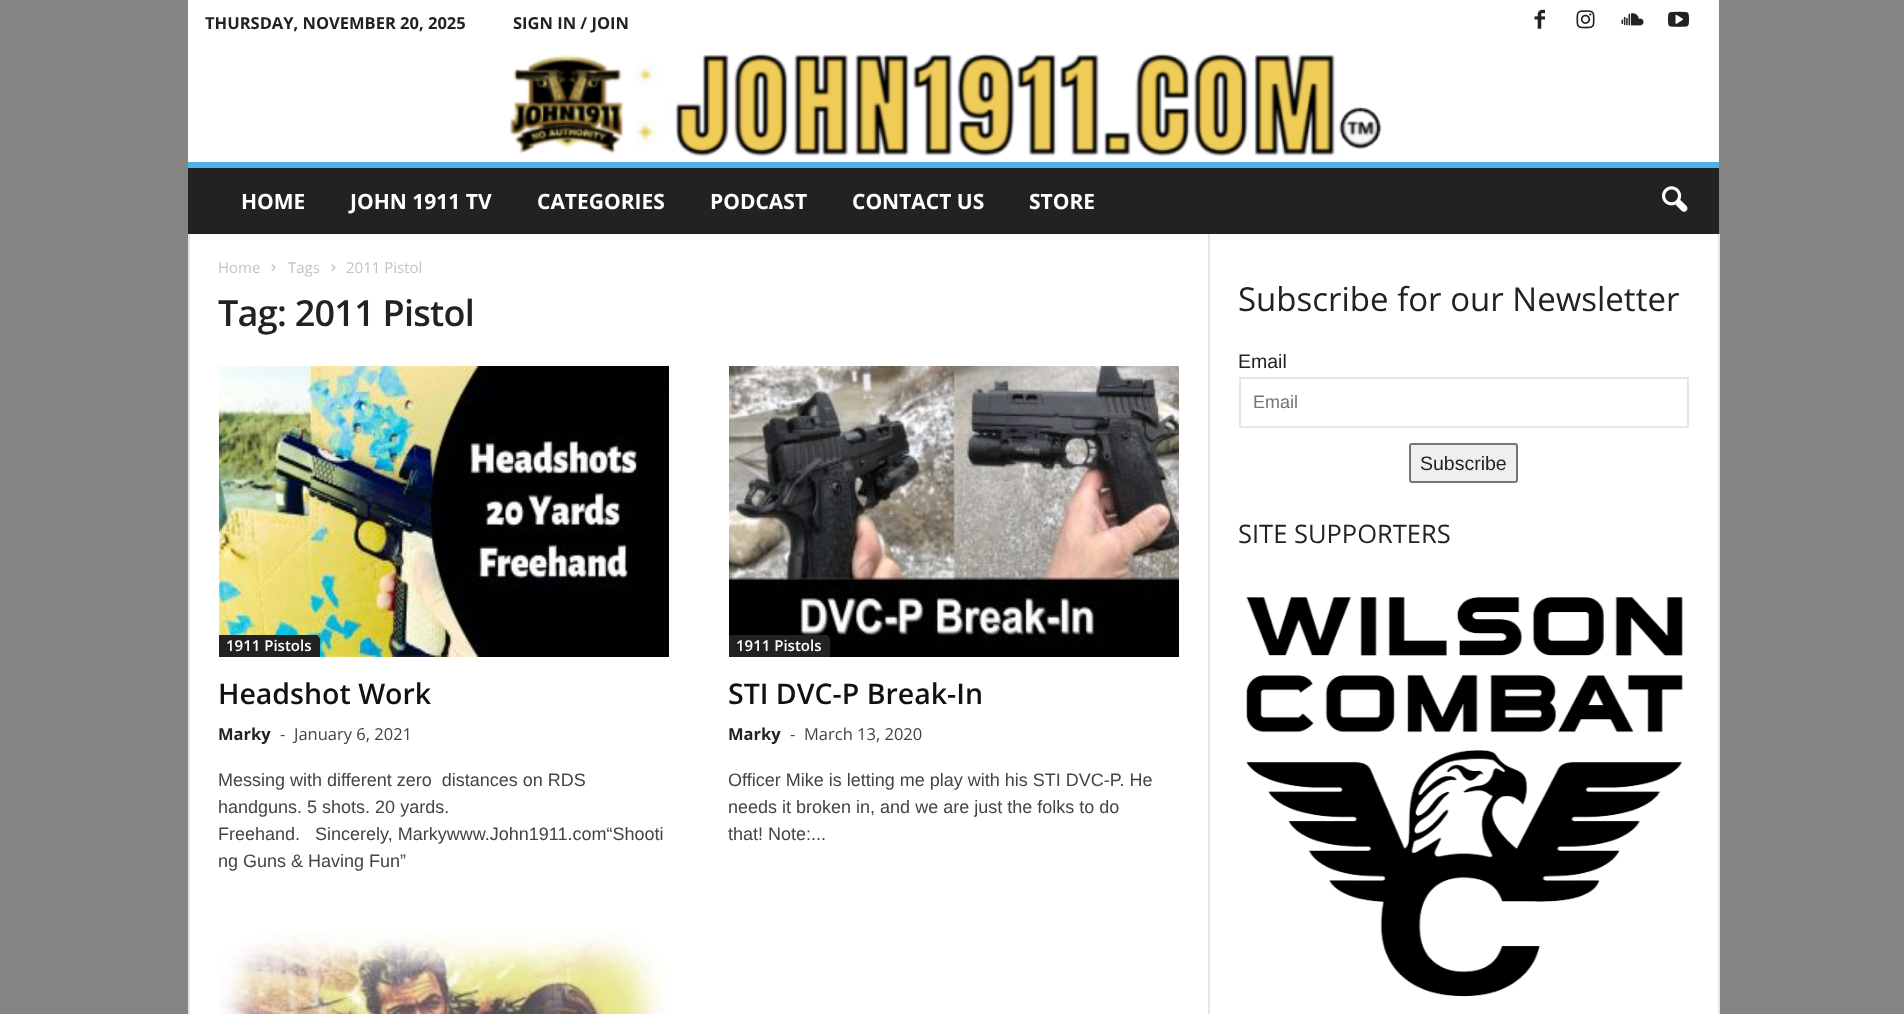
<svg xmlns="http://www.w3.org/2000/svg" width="1904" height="1014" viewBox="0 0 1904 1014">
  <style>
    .t1 { font: bold 16.5px Open Sans; fill: #222; }
    .t2 { font: bold 21px Open Sans; fill: #fff; }
    .t3 { font: 15px Open Sans; fill: #c3c3c3; }
    .t4 { font: 600 36px Open Sans; letter-spacing: -0.75px; fill: #222; }
    .t5 { font: 600 15px Open Sans; fill: #fff; }
    .t6 { font: 600 28.5px Open Sans; fill: #111; }
    .t7 { font: 16.5px Open Sans; fill: #444; }
    .t8 { font: 18px Liberation Sans; fill: #444; }
    .t9 { font: 33px Open Sans; fill: #222; }
    .t10 { font: 19.5px Liberation Sans; fill: #222; }
    .t11 { font: 18px Liberation Sans; fill: #757575; }
    .t12 { font: 25.5px Open Sans; fill: #222; }
  </style>
  <rect width="100%" height="100%" fill="#848482"/>
  <rect x="188" y="0" width="1531" height="162" fill="#fff"/>
  <text x="205" y="29" class="t1">THURSDAY, NOVEMBER 20, 2025</text>
  <text x="513" y="29" class="t1">SIGN IN / JOIN</text>
  <image x="1534" y="9" width="11" height="20" href="images/1.png"/>
  <image x="1576" y="10" width="19" height="19" href="images/2.png"/>
  <image x="1621" y="13" width="23" height="13" href="images/3.png"/>
  <image x="1668" y="11" width="21" height="16" href="images/4.png"/>
  <image x="509" y="53" width="873" height="104" href="images/5.png"/>
  <rect x="188" y="168" width="1531" height="66" fill="#222"/>
  <rect x="188" y="162" width="1531" height="6" fill="#4db2ec"/>
  <text x="241" y="209" class="t2">HOME</text>
  <text x="350" y="209" class="t2">JOHN 1911 TV</text>
  <text x="537" y="209" class="t2">CATEGORIES</text>
  <text x="710" y="209" class="t2">PODCAST</text>
  <text x="852" y="209" class="t2">CONTACT US</text>
  <text x="1029" y="209" class="t2">STORE</text>
  <image x="1662" y="186" width="26" height="26" href="images/6.png"/>
  <rect x="190" y="234" width="1528" height="780" fill="#fff"/>
  <rect x="188" y="234" width="2" height="780" fill="#e6e6e6"/>
  <text x="218" y="273" class="t3">Home</text>
  <image x="271" y="264" width="5" height="8" href="images/7.png"/>
  <text x="288" y="273" class="t3">Tags</text>
  <image x="331" y="264" width="5" height="8" href="images/7.png"/>
  <text x="346" y="273" class="t3">2011 Pistol</text>
  <text x="218" y="326" class="t4">Tag: 2011 Pistol</text>
  <image x="219" y="366" width="450" height="291" href="images/8.png"/>
  <path d="M219 635H315C318 635 320 637 320 640V657H219Z" fill="#222"/>
  <text x="226" y="651" class="t5">1911 Pistols</text>
  <text x="218" y="704" class="t6">Headshot Work</text>
  <text x="218" y="740" class="t1">Marky</text>
  <text x="280" y="740" class="t7">-</text>
  <text x="294" y="740" class="t7">January 6, 2021</text>
  <text x="218" y="786" class="t8" xml:space="preserve">Messing with different zero  distances on RDS</text>
  <text x="218" y="813" class="t8">handguns. 5 shots. 20 yards.</text>
  <text x="218" y="840" class="t8" xml:space="preserve">Freehand.   Sincerely, Markywww.John1911.com“Shooti</text>
  <text x="218" y="867" class="t8">ng Guns &amp; Having Fun”</text>
  <image x="729" y="366" width="450" height="291" href="images/9.png"/>
  <path d="M729 635H825C828 635 830 637 830 640V657H729Z" fill="#222"/>
  <text x="736" y="651" class="t5">1911 Pistols</text>
  <text x="728" y="704" class="t6">STI DVC-P Break-In</text>
  <text x="728" y="740" class="t1">Marky</text>
  <text x="790" y="740" class="t7">-</text>
  <text x="804" y="740" class="t7">March 13, 2020</text>
  <text x="728" y="786" class="t8">Officer Mike is letting me play with his STI DVC-P. He</text>
  <text x="728" y="813" class="t8">needs it broken in, and we are just the folks to do</text>
  <text x="728" y="840" class="t8">that! Note:...</text>
  <image x="219" y="930" width="450" height="84" href="images/10.png"/>
  <rect x="1208" y="234" width="2" height="780" fill="#e6e6e6"/>
  <text x="1238" y="311" class="t9">Subscribe for our Newsletter</text>
  <text x="1238" y="368" class="t10">Email</text>
  <rect x="1240" y="378" width="448" height="49" fill="none" stroke="#e6e6e6" stroke-width="2"/>
  <text x="1253" y="408" class="t11">Email</text>
  <rect x="1410" y="444" width="107" height="38" rx="2" fill="#efefef" stroke="#767676" stroke-width="2"/>
  <text x="1420" y="470" class="t10">Subscribe</text>
  <text x="1238" y="543" class="t12">SITE SUPPORTERS</text>
  <image x="1246" y="597" width="437" height="400" href="images/11.png"/>
  <rect x="1718" y="234" width="2" height="780" fill="#e6e6e6"/>
</svg>
